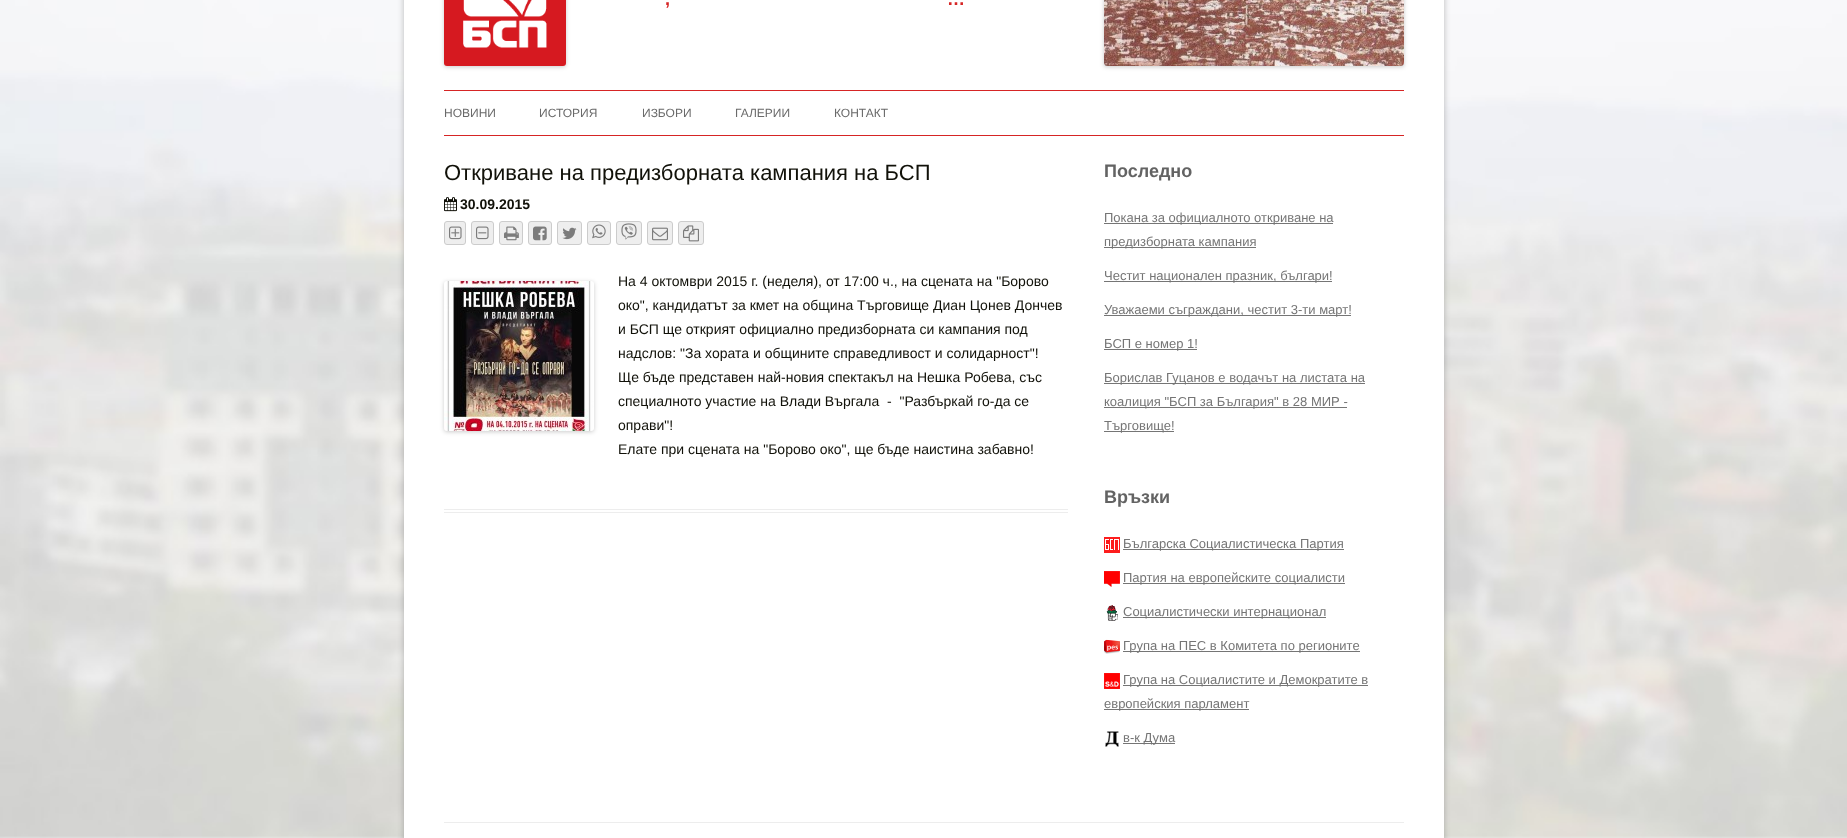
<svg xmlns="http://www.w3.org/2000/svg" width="1847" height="838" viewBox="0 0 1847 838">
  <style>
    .t1 { font: bold 18px Liberation Sans; fill: #d62525; }
    .t2 { font: 12px Liberation Sans; fill: #6a6a6a; }
    .t3 { font: 22px Liberation Sans; fill: #111109; }
    .t4 { font: bold 14px Liberation Sans; fill: #111109; }
    .t5 { font: 14px Liberation Sans; fill: #111109; }
    .t6 { font: bold 18px Liberation Sans; fill: #636363; }
    .t7 { font: 13px Liberation Sans; fill: #757575; }
  </style>
  <defs>
    <clipPath id="clip1"><rect x="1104" y="-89" width="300" height="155" rx="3"/></clipPath>
  </defs>
  <rect width="100%" height="100%" fill="#efefef"/>
  <image x="0" y="0" width="1847" height="838" href="images/1.png"/>
  <rect x="404" y="-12" width="1040" height="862" rx="3" fill="#5a5a5a66" filter="blur(3px)"/>
  <rect x="404" y="0" width="1040" height="838" fill="#fff"/>
  <rect x="444" y="-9" width="122" height="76" rx="3" fill="#00000033" filter="blur(2px)"/>
  <image x="444" y="0" width="122" height="66" href="images/2.png"/>
  <text x="665" y="5" class="t1">,</text>
  <text x="947" y="5" class="t1">…</text>
  <rect x="1104" y="-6" width="300" height="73" fill="#00000033" filter="blur(2px)"/>
  <g clip-path="url(#clip1)">
    <rect x="1104" y="-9" width="300" height="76" rx="3" fill="#00000033" filter="blur(2px)"/>
  </g>
  <image x="1104" y="0" width="300" height="66" href="images/3.png"/>
  <rect x="444" y="90" width="960" height="1" fill="#d62525"/>
  <rect x="444" y="135" width="960" height="1" fill="#d62525"/>
  <text x="444" y="117" class="t2">НОВИНИ</text>
  <text x="539" y="117" class="t2">ИСТОРИЯ</text>
  <text x="642" y="117" class="t2">ИЗБОРИ</text>
  <text x="735" y="117" class="t2">ГАЛЕРИИ</text>
  <text x="834" y="117" class="t2">КОНТАКТ</text>
  <rect x="444" y="509" width="624" height="1" fill="#ededed"/>
  <rect x="444" y="512" width="624" height="1" fill="#ededed"/>
  <text x="444" y="180" class="t3">Откриване на предизборната кампания на БСП</text>
  <image x="444" y="197" width="13" height="15" href="images/4.png"/>
  <text x="460" y="209" class="t4">30.09.2015</text>
  <rect x="444.5" y="221.5" width="21" height="23" rx="2.5" fill="#eee" stroke="#ccc"/>
  <image x="449" y="226" width="13" height="14" href="images/5.png"/>
  <rect x="471.5" y="221.5" width="22" height="23" rx="2.5" fill="#eee" stroke="#ccc"/>
  <image x="476" y="226" width="13" height="14" href="images/6.png"/>
  <rect x="499.5" y="221.5" width="23" height="23" rx="2.5" fill="#eee" stroke="#ccc"/>
  <image x="504" y="226" width="15" height="15" href="images/7.png"/>
  <rect x="528.5" y="221.5" width="23" height="23" rx="2.5" fill="#eee" stroke="#ccc"/>
  <image x="533" y="226" width="14" height="15" href="images/8.png"/>
  <rect x="557.5" y="221.5" width="24" height="23" rx="2.5" fill="#eee" stroke="#ccc"/>
  <image x="562" y="227" width="15" height="13" href="images/9.png"/>
  <rect x="587.5" y="221.5" width="23" height="23" rx="2.5" fill="#eee" stroke="#ccc"/>
  <image x="592" y="224" width="14" height="15" href="images/10.png"/>
  <rect x="616.5" y="221.5" width="25" height="23" rx="2.5" fill="#eee" stroke="#ccc"/>
  <image x="621" y="223" width="16" height="17" href="images/11.png"/>
  <rect x="647.5" y="221.5" width="25" height="23" rx="2.5" fill="#eee" stroke="#ccc"/>
  <image x="652" y="227" width="16" height="14" href="images/12.png"/>
  <rect x="678.5" y="221.5" width="25" height="23" rx="2.5" fill="#eee" stroke="#ccc"/>
  <image x="683" y="225" width="16" height="17" href="images/13.png"/>
  <rect x="444" y="282" width="150" height="150" rx="3" fill="#00000033" filter="blur(2px)"/>
  <image x="444" y="281" width="150" height="150" href="images/14.png"/>
  <text x="618" y="286" class="t5">На 4 октомври 2015 г. (неделя), от 17:00 ч., на сцената на "Борово</text>
  <text x="618" y="310" class="t5">око", кандидатът за кмет на община Търговище Диан Цонев Дончев</text>
  <text x="618" y="334" class="t5">и БСП ще открият официално предизборната си кампания под</text>
  <text x="618" y="358" class="t5">надслов: "За хората и общините справедливост и солидарност"!</text>
  <text x="618" y="382" class="t5">Ще бъде представен най-новия спектакъл на Нешка Робева, със</text>
  <text x="618" y="406" class="t5" xml:space="preserve">специалното участие на Влади Въргала  -  "Разбъркай го-да се</text>
  <text x="618" y="430" class="t5">оправи"!</text>
  <text x="618" y="454" class="t5">Елате при сцената на "Борово око", ще бъде наистина забавно!</text>
  <text x="1104" y="177" class="t6">Последно</text>
  <rect x="1104" y="223" width="229" height="1" fill="#757575"/>
  <text x="1104" y="222" class="t7">Покана за официалното откриване на</text>
  <rect x="1104" y="247" width="152" height="1" fill="#757575"/>
  <text x="1104" y="246" class="t7">предизборната кампания</text>
  <rect x="1104" y="281" width="228" height="1" fill="#757575"/>
  <text x="1104" y="280" class="t7">Честит национален празник, българи!</text>
  <rect x="1104" y="315" width="247" height="1" fill="#757575"/>
  <text x="1104" y="314" class="t7">Уважаеми съграждани, честит 3-ти март!</text>
  <rect x="1104" y="349" width="93" height="1" fill="#757575"/>
  <text x="1104" y="348" class="t7">БСП е номер 1!</text>
  <rect x="1104" y="383" width="261" height="1" fill="#757575"/>
  <text x="1104" y="382" class="t7">Борислав Гуцанов е водачът на листата на</text>
  <rect x="1104" y="407" width="243" height="1" fill="#757575"/>
  <text x="1104" y="406" class="t7">коалиция "БСП за България" в 28 МИР -</text>
  <rect x="1104" y="431" width="70" height="1" fill="#757575"/>
  <text x="1104" y="430" class="t7">Търговище!</text>
  <text x="1104" y="503" class="t6">Връзки</text>
  <image x="1104" y="537" width="16" height="16" href="images/15.png"/>
  <rect x="1123" y="549" width="221" height="1" fill="#757575"/>
  <text x="1123" y="548" class="t7">Българска Социалистическа Партия</text>
  <image x="1104" y="571" width="16" height="16" href="images/16.png"/>
  <rect x="1123" y="583" width="222" height="1" fill="#757575"/>
  <text x="1123" y="582" class="t7">Партия на европейските социалисти</text>
  <image x="1106" y="605" width="12" height="16" href="images/17.png"/>
  <rect x="1123" y="617" width="203" height="1" fill="#757575"/>
  <text x="1123" y="616" class="t7">Социалистически интернационал</text>
  <image x="1104" y="639" width="16" height="15" href="images/18.png"/>
  <rect x="1123" y="651" width="237" height="1" fill="#757575"/>
  <text x="1123" y="650" class="t7">Група на ПЕС в Комитета по регионите</text>
  <image x="1104" y="673" width="16" height="16" href="images/19.png"/>
  <rect x="1123" y="685" width="245" height="1" fill="#757575"/>
  <text x="1123" y="684" class="t7">Група на Социалистите и Демократите в</text>
  <rect x="1104" y="709" width="145" height="1" fill="#757575"/>
  <text x="1104" y="708" class="t7">европейския парламент</text>
  <image x="1105" y="731" width="14" height="16" href="images/20.png"/>
  <rect x="1123" y="743" width="52" height="1" fill="#757575"/>
  <text x="1123" y="742" class="t7">в-к Дума</text>
  <rect x="444" y="822" width="960" height="1" fill="#ededed"/>
</svg>
